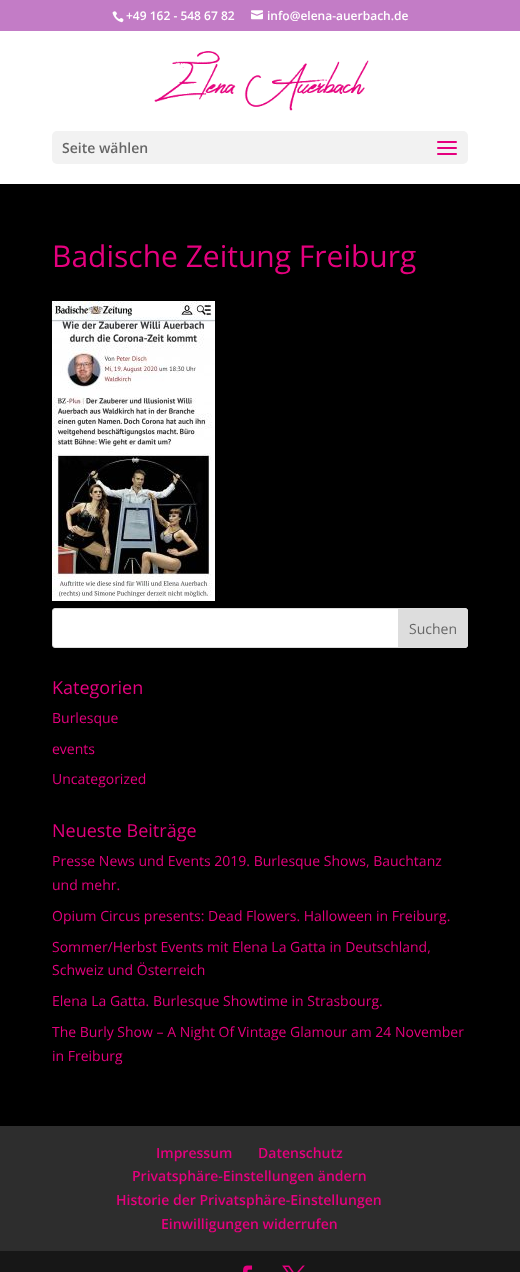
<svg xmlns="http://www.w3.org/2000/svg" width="520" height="1272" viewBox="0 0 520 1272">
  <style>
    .t1 { font: 600 12px Open Sans; fill: #fff; }
    .t2 { font: 600 14px Open Sans; fill: #666; }
    .t3 { font: 30px Open Sans; fill: #e5007e; }
    .t4 { font: 14px Open Sans; fill: #666; }
    .t5 { font: 18px Open Sans; fill: #e5007e; }
    .t6 { font: 14px Open Sans; fill: #e5007e; }
    .t7 { font: 600 14px Open Sans; fill: #e5007e; }
  </style>
  <rect width="100%" height="100%" fill="#000"/>
  <rect x="0" y="0" width="520" height="31" fill="#c37cc6"/>
  <image x="112" y="11" width="12" height="12" href="images/1.png"/>
  <text x="126" y="20" class="t1">+49 162 - 548 67 82</text>
  <image x="251" y="10" width="12" height="10" href="images/2.png"/>
  <text x="267" y="20" class="t1">info@elena-auerbach.de</text>
  <rect x="0" y="31" width="520" height="153" fill="#fff"/>
  <image x="154" y="51" width="215" height="60" href="images/3.png"/>
  <rect x="52" y="131" width="416" height="33" rx="5" fill="#f2f2f2"/>
  <text x="62" y="153" class="t2">Seite wählen</text>
  <image x="437" y="141" width="20" height="14" href="images/4.png"/>
  <text x="52" y="267" class="t3">Badische Zeitung Freiburg</text>
  <image x="52" y="301" width="163" height="300" href="images/5.png"/>
  <rect x="52.5" y="608.5" width="415" height="39" rx="2.5" fill="#fff" stroke="#ddd"/>
  <path d="M398.5 608.5H465C466.5 608.5 467.5 609.5 467.5 611V645C467.5 646.5 466.5 647.5 465 647.5H398.5Z" fill="#ddd" stroke="#ddd"/>
  <text x="409" y="634" class="t4">Suchen</text>
  <text x="52" y="694" class="t5">Kategorien</text>
  <text x="52" y="723" class="t6">Burlesque</text>
  <text x="52" y="754" class="t6">events</text>
  <text x="52" y="784" class="t6">Uncategorized</text>
  <text x="52" y="837" class="t5">Neueste Beiträge</text>
  <text x="52" y="866" class="t6">Presse News und Events 2019. Burlesque Shows, Bauchtanz</text>
  <text x="52" y="890" class="t6">und mehr.</text>
  <text x="52" y="921" class="t6">Opium Circus presents: Dead Flowers. Halloween in Freiburg.</text>
  <text x="52" y="952" class="t6">Sommer/Herbst Events mit Elena La Gatta in Deutschland,</text>
  <text x="52" y="975" class="t6">Schweiz und Österreich</text>
  <text x="52" y="1006" class="t6">Elena La Gatta. Burlesque Showtime in Strasbourg.</text>
  <text x="52" y="1037" class="t6">The Burly Show – A Night Of Vintage Glamour am 24 November</text>
  <text x="52" y="1061" class="t6">in Freiburg</text>
  <rect x="0" y="1126" width="520" height="125" fill="#2d2d2d"/>
  <text x="156" y="1158" class="t7">Impressum</text>
  <text x="258" y="1158" class="t7">Datenschutz</text>
  <text x="132" y="1181" class="t7">Privatsphäre-Einstellungen ändern</text>
  <text x="116" y="1205" class="t7">Historie der Privatsphäre-Einstellungen</text>
  <text x="161" y="1229" class="t7">Einwilligungen widerrufen</text>
  <rect x="0" y="1251" width="520" height="21" fill="#171717"/>
  <image x="243" y="1265" width="10" height="7" href="images/6.png"/>
  <image x="282" y="1265" width="23" height="7" href="images/7.png"/>
</svg>
